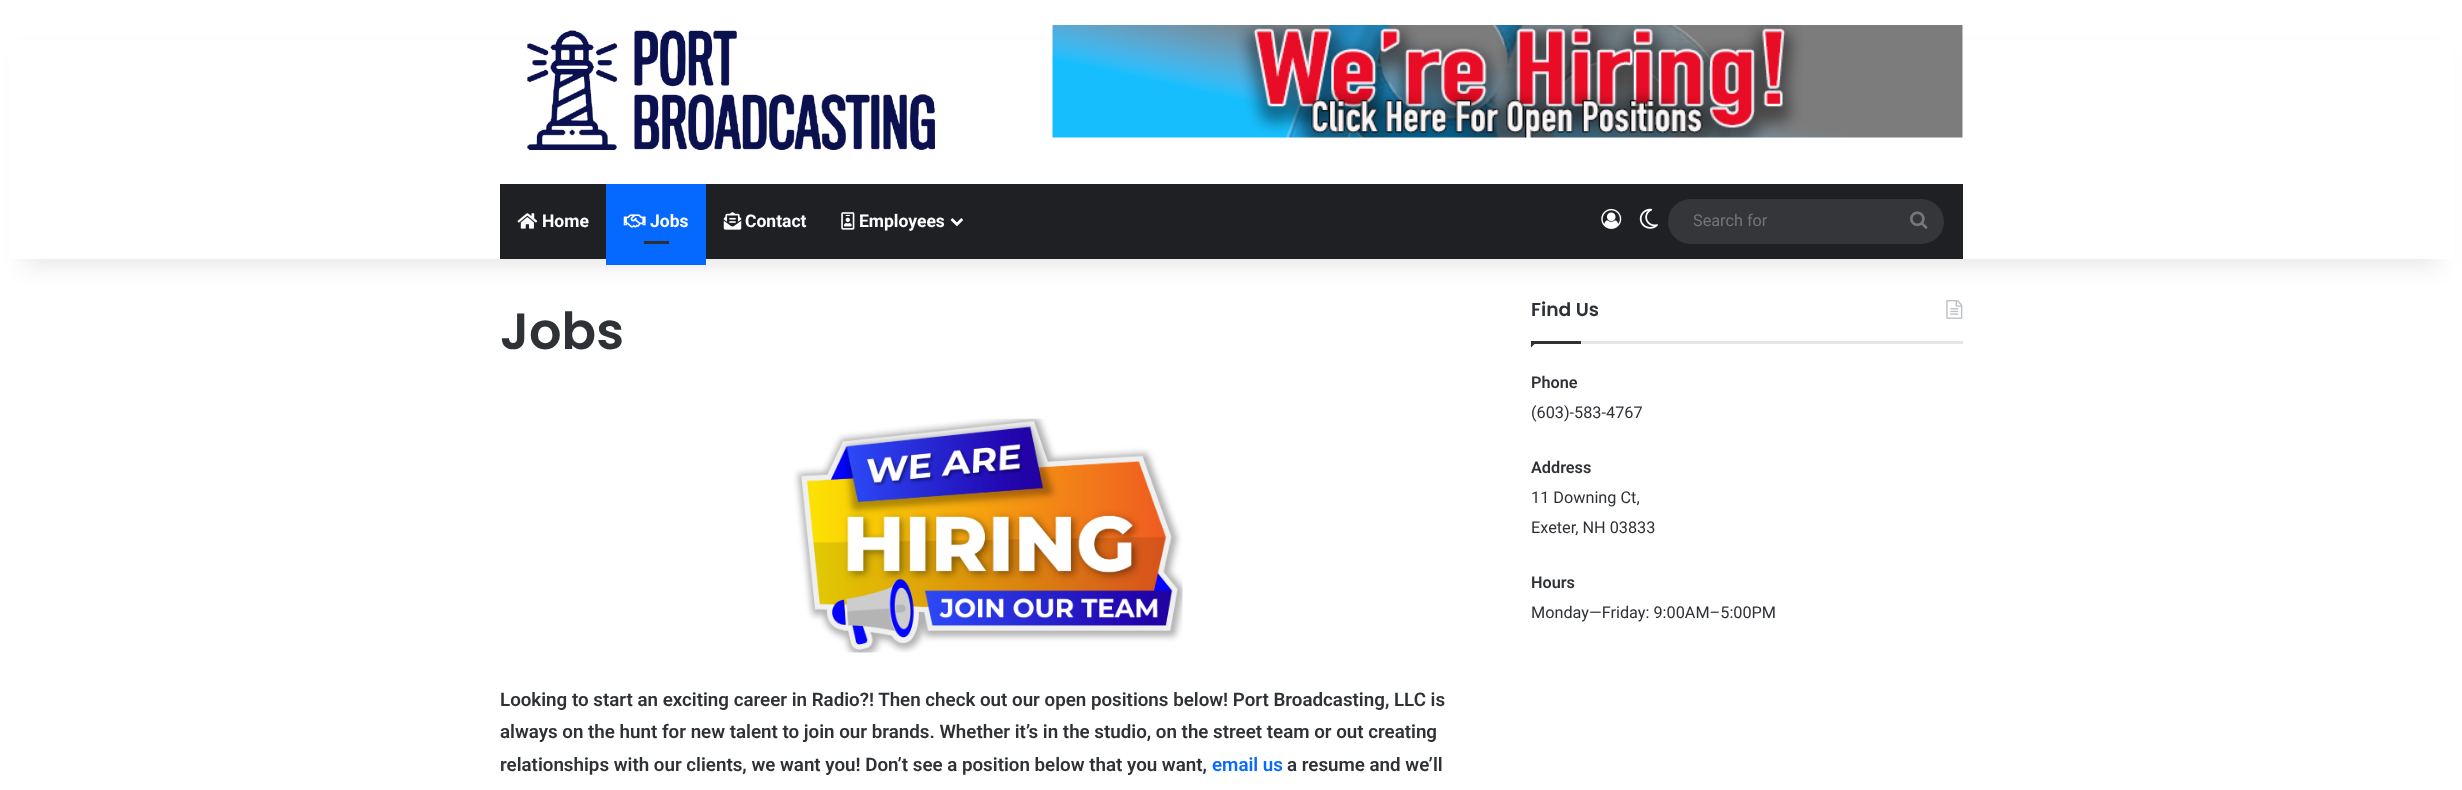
<svg xmlns="http://www.w3.org/2000/svg" width="2462" height="790" viewBox="0 0 2462 790">
  <style>
    .t1 { font: bold 17.5px Roboto; fill: #fff; }
    .t2 { font: 16.25px Roboto; fill: #757575; }
    .t3 { font: 600 51px Poppins; fill: #2e3136; }
    .t4 { font: 600 18.75px Roboto; fill: #2e3136; }
    .t5 { font: 600 18.75px Roboto; fill: #086bff; }
    .t6 { font: 600 18.75px Poppins; fill: #2e3136; }
    .t7 { font: 600 16.25px Roboto; fill: #2e3136; }
    .t8 { font: 16.25px Roboto; fill: #2e3136; }
  </style>
  <rect width="100%" height="100%" fill="#fff"/>
  <image x="1946" y="300" width="17" height="19" href="images/12.png"/>
  <rect x="25" y="56" width="2413" height="209" fill="#0000001a" filter="blur(12.5px)"/>
  <rect x="9" y="40" width="2445" height="219" fill="#fff"/>
  <image x="527" y="30" width="408" height="120" href="images/1.png"/>
  <image x="1052" y="25" width="911" height="113" href="images/2.png"/>
  <rect x="500" y="184" width="1463" height="75" fill="#1f2024"/>
  <image x="517" y="213" width="21" height="16" href="images/3.png"/>
  <text x="542" y="227" class="t1">Home</text>
  <rect x="606" y="184" width="100" height="81" fill="#0669ff"/>
  <image x="623" y="214" width="23" height="14" href="images/4.png"/>
  <text x="650" y="227" class="t1">Jobs</text>
  <rect x="644" y="241" width="25" height="3" fill="#2c2f34"/>
  <image x="723" y="212" width="19" height="18" href="images/5.png"/>
  <text x="745" y="227" class="t1">Contact</text>
  <image x="841" y="212" width="14" height="18" href="images/6.png"/>
  <text x="859" y="227" class="t1">Employees</text>
  <image x="950" y="218" width="13" height="9" href="images/7.png"/>
  <image x="1601" y="208" width="21" height="21" href="images/8.png"/>
  <image x="1639" y="208" width="19" height="21" href="images/9.png"/>
  <rect x="1668" y="199" width="276" height="45" rx="22.5" fill="#35363a"/>
  <text x="1693" y="226" class="t2">Search for</text>
  <image x="1910" y="211" width="18" height="18" href="images/10.png"/>
  <text x="500" y="349" class="t3">Jobs</text>
  <image x="793" y="418" width="390" height="235" href="images/11.png"/>
  <text x="500" y="706" class="t4">Looking to start an exciting career in Radio?! Then check out our open positions below! Port Broadcasting, LLC is</text>
  <text x="500" y="738" class="t4">always on the hunt for new talent to join our brands. Whether it’s in the studio, on the street team or out creating</text>
  <text x="500" y="771" class="t4">relationships with our clients, we want you! Don’t see a position below that you want,</text>
  <text x="1212" y="771" class="t5">email us</text>
  <text x="1287" y="771" class="t4">a resume and we’ll</text>
  <rect x="1581" y="341" width="382" height="3" fill="#e6e6e6"/>
  <text x="1531" y="316" class="t6">Find Us</text>
  <path d="M1531 341H1537.5L1531 347.5Z" fill="#2e3136"/>
  <rect x="1531" y="341" width="50" height="3" fill="#2e3136"/>
  <text x="1531" y="388" class="t7">Phone</text>
  <text x="1531" y="418" class="t8">(603)-583-4767</text>
  <text x="1531" y="473" class="t7">Address</text>
  <text x="1531" y="503" class="t8">11 Downing Ct,</text>
  <text x="1531" y="533" class="t8">Exeter, NH 03833</text>
  <text x="1531" y="588" class="t7">Hours</text>
  <text x="1531" y="618" class="t8">Monday—Friday: 9:00AM–5:00PM</text>
</svg>
